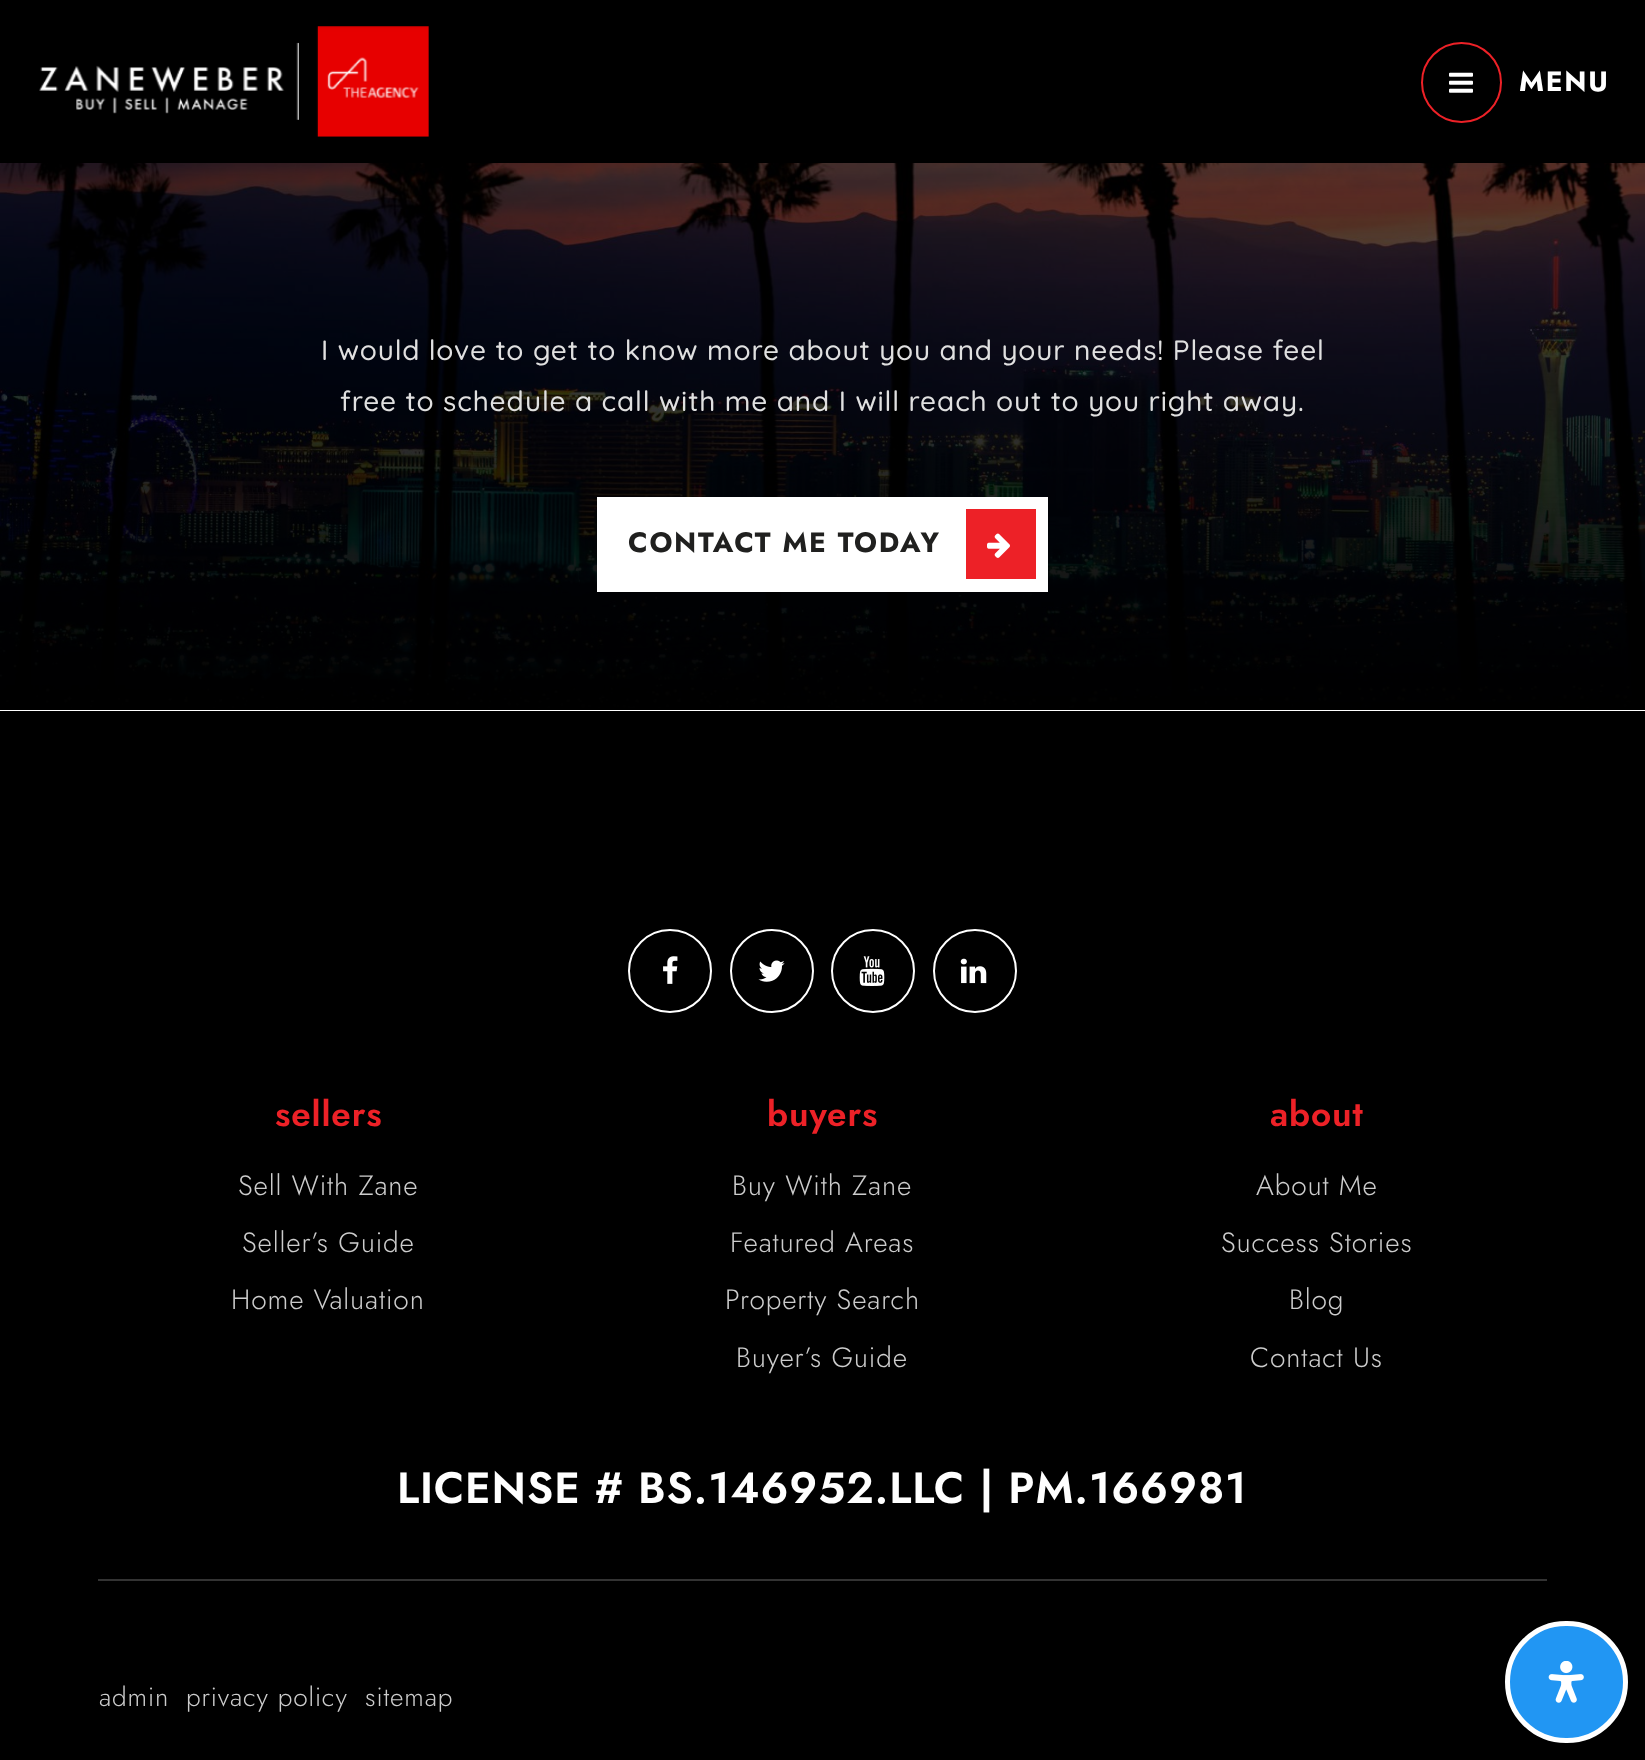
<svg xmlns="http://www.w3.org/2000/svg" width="1645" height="1760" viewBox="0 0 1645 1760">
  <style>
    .t1 { font: bold 28px Jost; letter-spacing: 1.75px; fill: #fff; }
    .t2 { font: 500 28px Quicksand; letter-spacing: 0.88px; fill: #e0e0e0; }
    .t3 { font: bold 28px Jost; letter-spacing: 1.75px; fill: #20201f; }
    .t4 { font: 600 35px Jost; letter-spacing: 0.88px; fill: #ed2127; }
    .t5 { font: 300 28px Jost; letter-spacing: 0.88px; fill: #ccc; }
    .t6 { font: 600 43.75px Jost; letter-spacing: 0.88px; fill: #fff; }
    .t7 { font: 300 26.25px Jost; letter-spacing: 0.88px; fill: #ccc; }
  </style>
  <rect width="100%" height="100%" fill="#fff"/>
  <rect x="0" y="0" width="1645" height="163" fill="#000"/>
  <image x="39" y="26" width="390" height="111" href="images/1.png"/>
  <circle cx="1461.5" cy="82.5" r="39.5" fill="none" stroke="#ed2127" stroke-width="2"/>
  <image x="1449" y="72" width="24" height="21" href="images/2.png"/>
  <text x="1519" y="91" class="t1">MENU</text>
  <image x="0" y="163" width="1645" height="547" href="images/3.png"/>
  <text x="321" y="360" class="t2">I would love to get to know more about you and your needs! Please feel</text>
  <text x="340" y="411" class="t2">free to schedule a call with me and I will reach out to you right away.</text>
  <rect x="597" y="497" width="451" height="95" fill="#fff"/>
  <text x="628" y="552" class="t3">CONTACT ME TODAY</text>
  <rect x="966" y="509" width="70" height="70" fill="#ed2127"/>
  <image x="987" y="533" width="23" height="25" href="images/4.png"/>
  <rect x="0" y="711" width="1645" height="1049" fill="#000"/>
  <circle cx="670" cy="971" r="41" fill="none" stroke="#fff" stroke-width="2"/>
  <image x="663" y="956" width="15" height="28" href="images/5.png"/>
  <circle cx="772" cy="971" r="41" fill="none" stroke="#fff" stroke-width="2"/>
  <image x="758" y="960" width="27" height="22" href="images/6.png"/>
  <circle cx="873" cy="971" r="41" fill="none" stroke="#fff" stroke-width="2"/>
  <image x="859" y="956" width="26" height="30" href="images/7.png"/>
  <circle cx="975" cy="971" r="41" fill="none" stroke="#fff" stroke-width="2"/>
  <image x="960" y="958" width="27" height="26" href="images/8.png"/>
  <text x="275" y="1126" class="t4">sellers</text>
  <text x="238" y="1195" class="t5">Sell With Zane</text>
  <text x="242" y="1252" class="t5">Seller’s Guide</text>
  <text x="231" y="1309" class="t5">Home Valuation</text>
  <text x="767" y="1126" class="t4">buyers</text>
  <text x="732" y="1195" class="t5">Buy With Zane</text>
  <text x="730" y="1252" class="t5">Featured Areas</text>
  <text x="725" y="1309" class="t5">Property Search</text>
  <text x="736" y="1367" class="t5">Buyer’s Guide</text>
  <text x="1270" y="1126" class="t4">about</text>
  <text x="1256" y="1195" class="t5">About Me</text>
  <text x="1221" y="1252" class="t5">Success Stories</text>
  <text x="1289" y="1309" class="t5">Blog</text>
  <text x="1250" y="1367" class="t5">Contact Us</text>
  <text x="397" y="1503" class="t6">LICENSE # BS.146952.LLC | PM.166981</text>
  <rect x="98" y="1579" width="1449" height="2" fill="#333"/>
  <text x="99" y="1706" class="t7">admin</text>
  <text x="186" y="1706" class="t7">privacy policy</text>
  <text x="365" y="1706" class="t7">sitemap</text>
  <rect x="1507.5" y="1623.5" width="118" height="117" rx="58.5" fill="#2196f3" stroke="#fff" stroke-width="5"/>
  <image x="1548" y="1661" width="36" height="42" href="images/9.png"/>
</svg>
